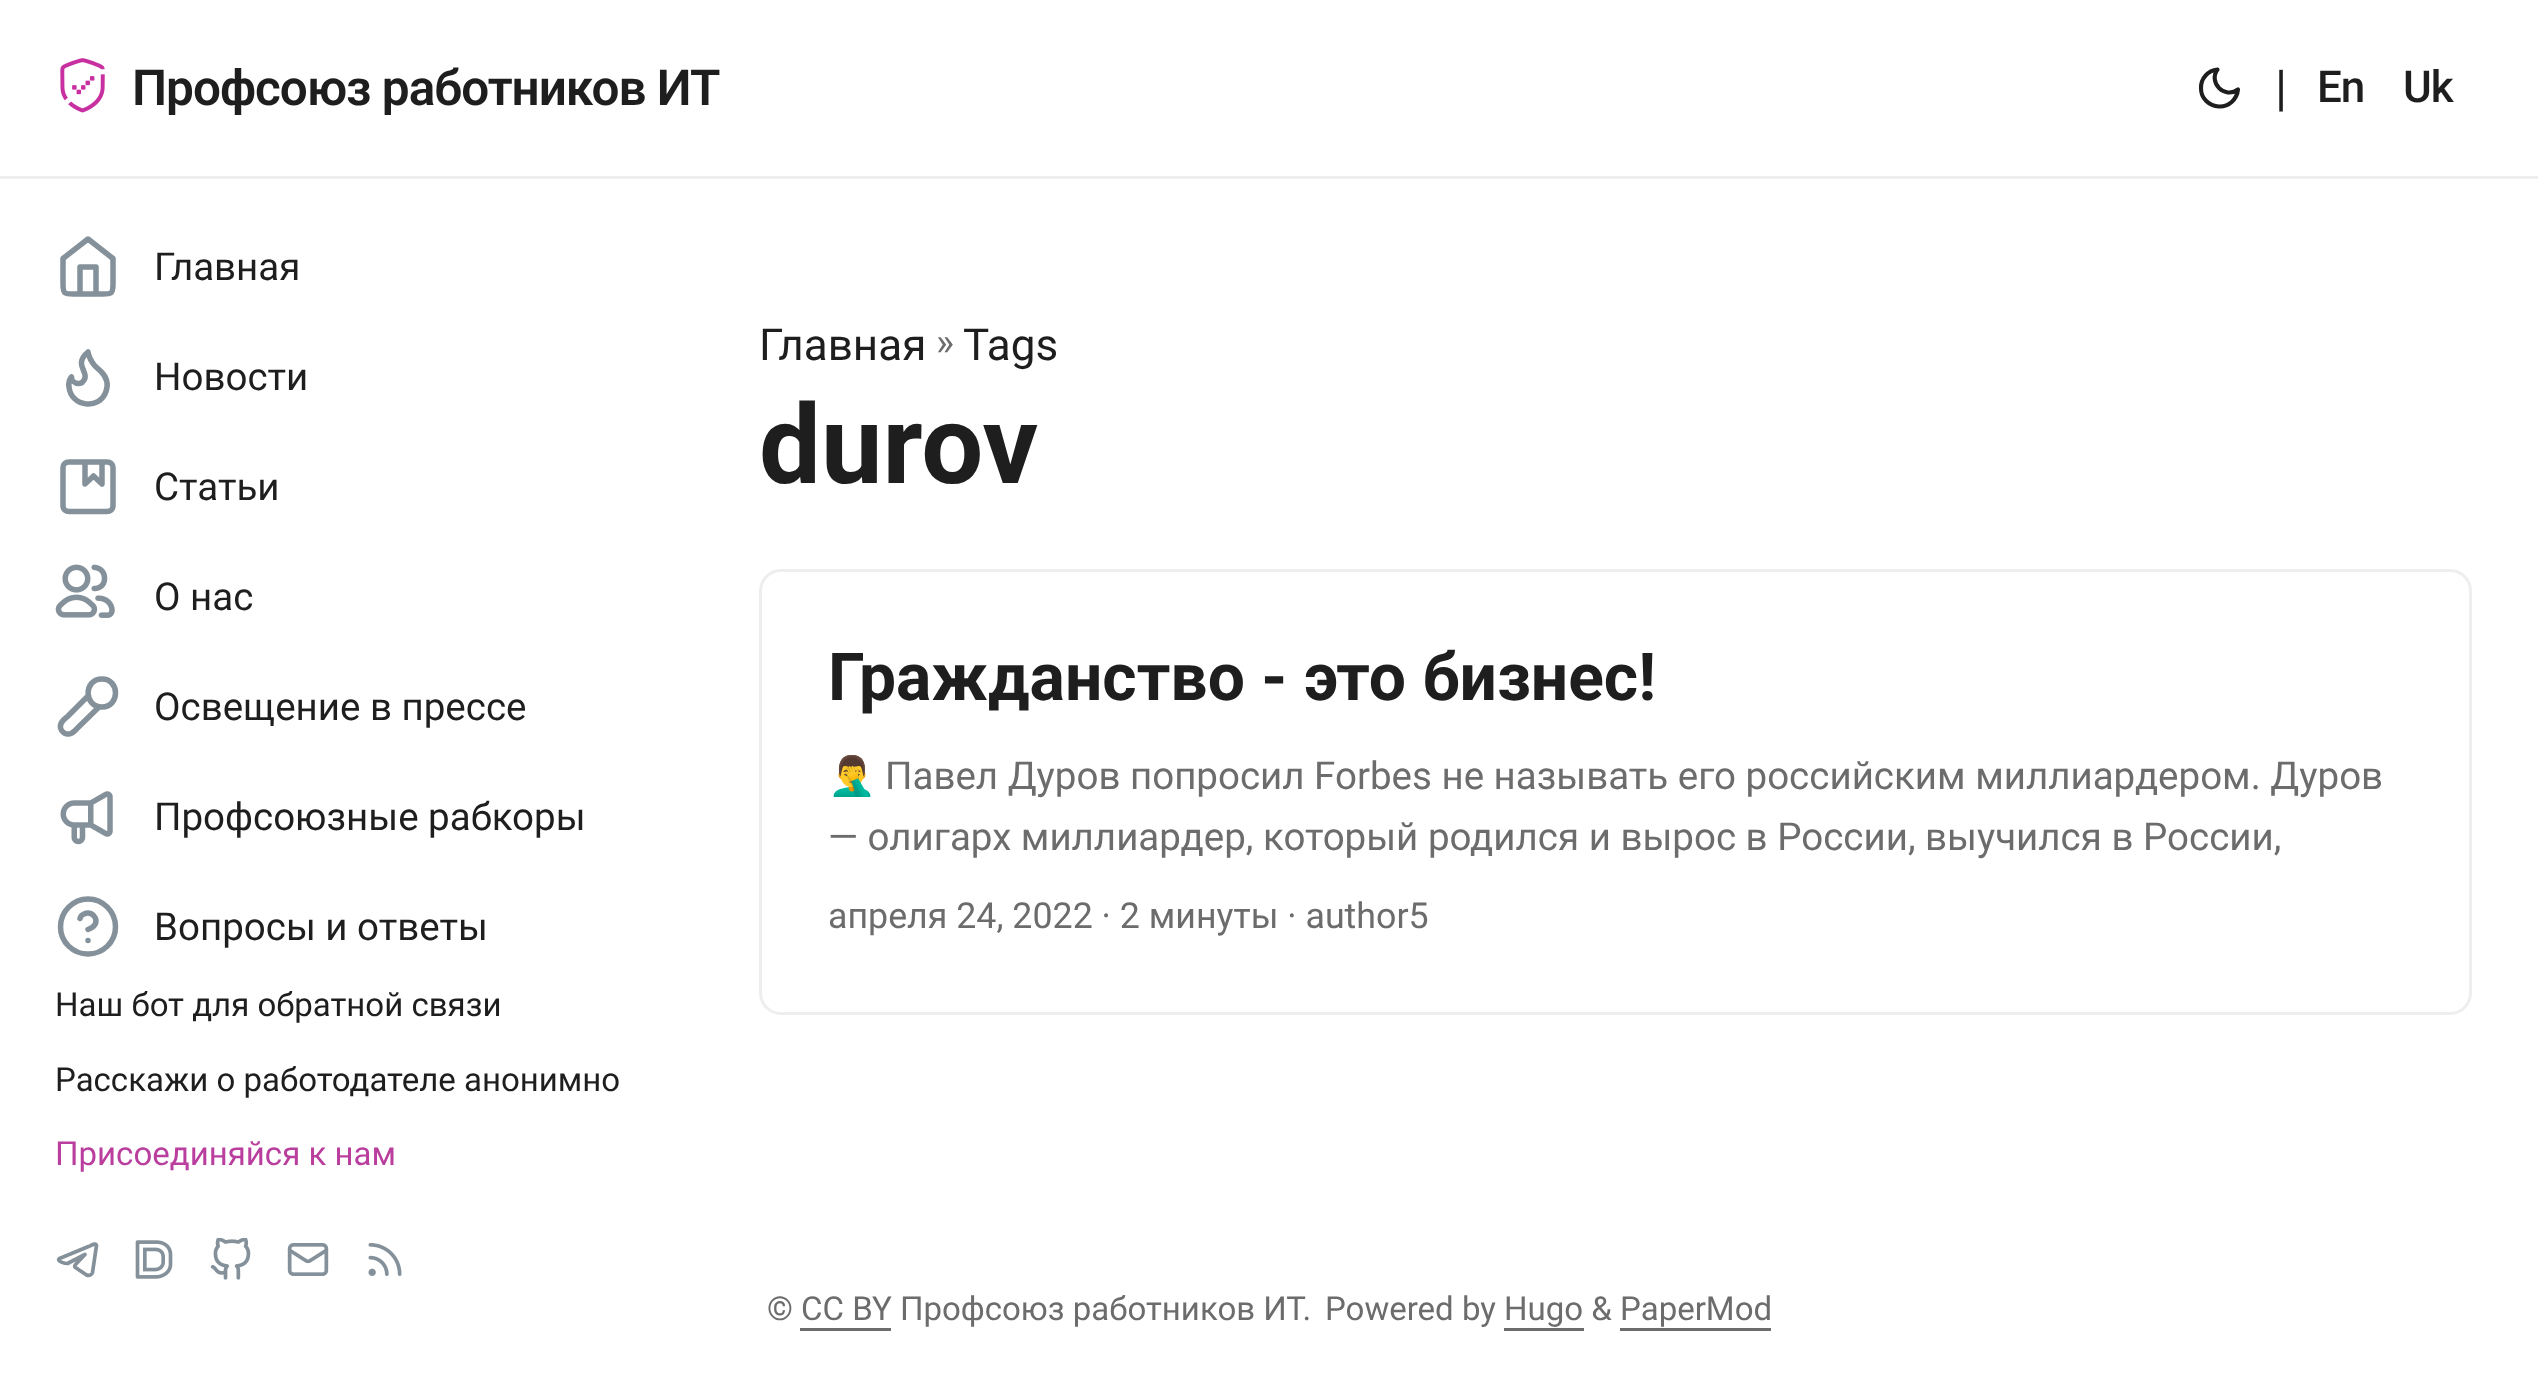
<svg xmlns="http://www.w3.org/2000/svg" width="2538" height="1390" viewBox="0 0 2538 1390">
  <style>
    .t1 { font: 600 49.5px Roboto; letter-spacing: -1px; fill: #1e1e1e; }
    .t2 { font: 49.5px Roboto; fill: #1e1e1e; }
    .t3 { font: 500 44px Roboto; letter-spacing: -1px; fill: #1e1e1e; }
    .t4 { font: 38.5px Roboto; fill: #1e1e1e; }
    .t5 { font: 33px Roboto; fill: #1e1e1e; }
    .t6 { font: 33px Roboto; fill: #b93e9d; }
    .t7 { font: 44px Roboto; fill: #1e1e1e; }
    .t8 { font: 38.5px Roboto; fill: #6c6c6c; }
    .t9 { font: bold 110px Roboto; fill: #1e1e1e; }
    .t10 { font: bold 66px Roboto; fill: #1e1e1e; }
    .t11 { font: 38.5px Noto Color Emoji; fill: #6c6c6c; }
    .t12 { font: 35.75px Roboto; fill: #6c6c6c; }
    .t13 { font: 33px Roboto; fill: #6c6c6c; }
  </style>
  <defs>
    <clipPath id="clip1"><rect x="828" y="745" width="1576" height="124"/></clipPath>
  </defs>
  <rect width="100%" height="100%" fill="#fff"/>
  <rect x="0" y="176" width="2538" height="3" fill="#eee"/>
  <image x="60" y="58" width="45" height="55" href="images/1.png"/>
  <text x="132" y="105" class="t1">Профсоюз работников ИТ</text>
  <path d="M2238 89.5C2237 99.5 2228.5 107 2219 106.5C2209 106 2201 98.5 2201 88.5C2200.5 78.5 2208 70.5 2217.5 69.5C2208 82.5 2224.5 99.5 2238 89.5Z" fill="none" stroke="#1e1e1e" stroke-width="4.1" stroke-linecap="round" stroke-linejoin="round"/>
  <text x="2275" y="105" class="t2">|</text>
  <text x="2317" y="102" class="t3">En</text>
  <text x="2403" y="102" class="t3">Uk</text>
  <path d="M63 258.5L88 239L113 258.5V283.5C113 294.5 111.5 294 101 294H75C64.5 294 63 294.5 63 283.5ZM80 294V267H96V294" fill="none" stroke="#84919a" stroke-width="5.5" stroke-linecap="round" stroke-linejoin="round"/>
  <text x="154" y="280" class="t4">Главная</text>
  <path d="M78.5 383.5C80 383.5 82 383 83 381.5C89 375.5 80.5 368.5 81.5 362C82 358 85 354.5 88 352C89 357 91.5 362 95 366L101 371.5C106.5 377 108.5 384.5 106 391.5C99.5 410.5 71 407 69 387C68.5 383.5 69 379.5 71.5 377C71.5 380.5 74.5 383.5 78.5 383.5Z" fill="none" stroke="#84919a" stroke-width="5.5" stroke-linecap="round" stroke-linejoin="round"/>
  <text x="154" y="390" class="t4">Новости</text>
  <path d="M107 462H69C65.5 462 63 464.5 63 467.5V506C63 509 65.5 511.5 69 511.5H107C110.5 511.5 113 509 113 506V467.5C113 464.5 110.5 462 107 462ZM85 462V484L93.5 476L102 484V462" fill="none" stroke="#84919a" stroke-width="5.5" stroke-linecap="round" stroke-linejoin="round"/>
  <text x="154" y="500" class="t4">Статьи</text>
  <image x="55" y="564" width="60" height="54" href="images/2.png"/>
  <text x="154" y="610" class="t4">О нас</text>
  <path d="M88 696L67.5 716.5C64 719.5 59.5 722.5 60.5 728C61 729.5 61.5 731 63 732C64 733 65.5 734 67 734C72 735 75 730.5 78 727.5L99 707M102 707C120 707 120 679 102 679C83.5 679 83.5 707 102 707Z" fill="none" stroke="#84919a" stroke-width="5.5" stroke-linecap="round" stroke-linejoin="round"/>
  <text x="154" y="720" class="t4">Освещение в прессе</text>
  <image x="60" y="791" width="53" height="54" href="images/3.png"/>
  <text x="154" y="830" class="t4">Профсоюзные рабкоры</text>
  <path d="M88 954C103 954 115.5 942 115.5 927C115.5 911.5 103 899 88 899C73 899 60.5 911.5 60.5 927C60.5 942 73 954 88 954ZM80 918.5C80.5 916.5 82.5 914.5 84 914C94 909 103 924.5 88 929.5M88 940.5H88" fill="none" stroke="#84919a" stroke-width="5.5" stroke-linecap="round" stroke-linejoin="round"/>
  <text x="154" y="940" class="t4">Вопросы и ответы</text>
  <text x="55" y="1016" class="t5">Наш бот для обратной связи</text>
  <text x="55" y="1091" class="t5">Расскажи о работодателе анонимно</text>
  <text x="55" y="1165" class="t6">Присоединяйся к нам</text>
  <path d="M92.5 1272.5L96.5 1245.5C96.5 1242.5 92 1245 88.5 1246.5L59.5 1258.5C56 1261.5 65.5 1263.5 67.5 1263.5L85 1254.5L75.5 1264.5C74.5 1265.5 74.5 1267 75.5 1267.5L86.5 1275C89 1276 92 1275 92.5 1272.5Z" fill="none" stroke="#84919a" stroke-width="3.7" stroke-linejoin="round"/>
  <image x="135" y="1240" width="38" height="39" href="images/4.png"/>
  <image x="210" y="1238" width="41" height="42" href="images/5.png"/>
  <image x="287" y="1243" width="42" height="33" href="images/6.png"/>
  <image x="368" y="1243" width="34" height="33" href="images/7.png"/>
  <text x="759" y="360" class="t7">Главная</text>
  <text x="936" y="355" class="t8">»</text>
  <text x="963" y="360" class="t7">Tags</text>
  <text x="759" y="483" class="t9">durov</text>
  <rect x="760.5" y="570.5" width="1710" height="443" rx="20.5" fill="none" stroke="#eee" stroke-width="3"/>
  <text x="828" y="700" class="t10">Гражданство - это бизнес!</text>
  <g clip-path="url(#clip1)">
    <text x="828" y="789" class="t11">🤦‍♂️</text>
  </g>
  <text x="885" y="789" class="t8">Павел Дуров попросил Forbes не называть его российским миллиардером. Дуров</text>
  <text x="828" y="850" class="t8">— олигарх миллиардер, который родился и вырос в России, выучился в России,</text>
  <text x="828" y="928" class="t12">апреля 24, 2022 · 2 минуты · author5</text>
  <text x="767" y="1320" class="t13">© CC BY Профсоюз работников ИТ.</text>
  <rect x="800" y="1328" width="91" height="3" fill="#6c6c6c"/>
  <text x="1325" y="1320" class="t13">Powered by Hugo &amp; PaperMod</text>
  <rect x="1504" y="1328" width="80" height="3" fill="#6c6c6c"/>
  <rect x="1620" y="1328" width="151" height="3" fill="#6c6c6c"/>
</svg>
